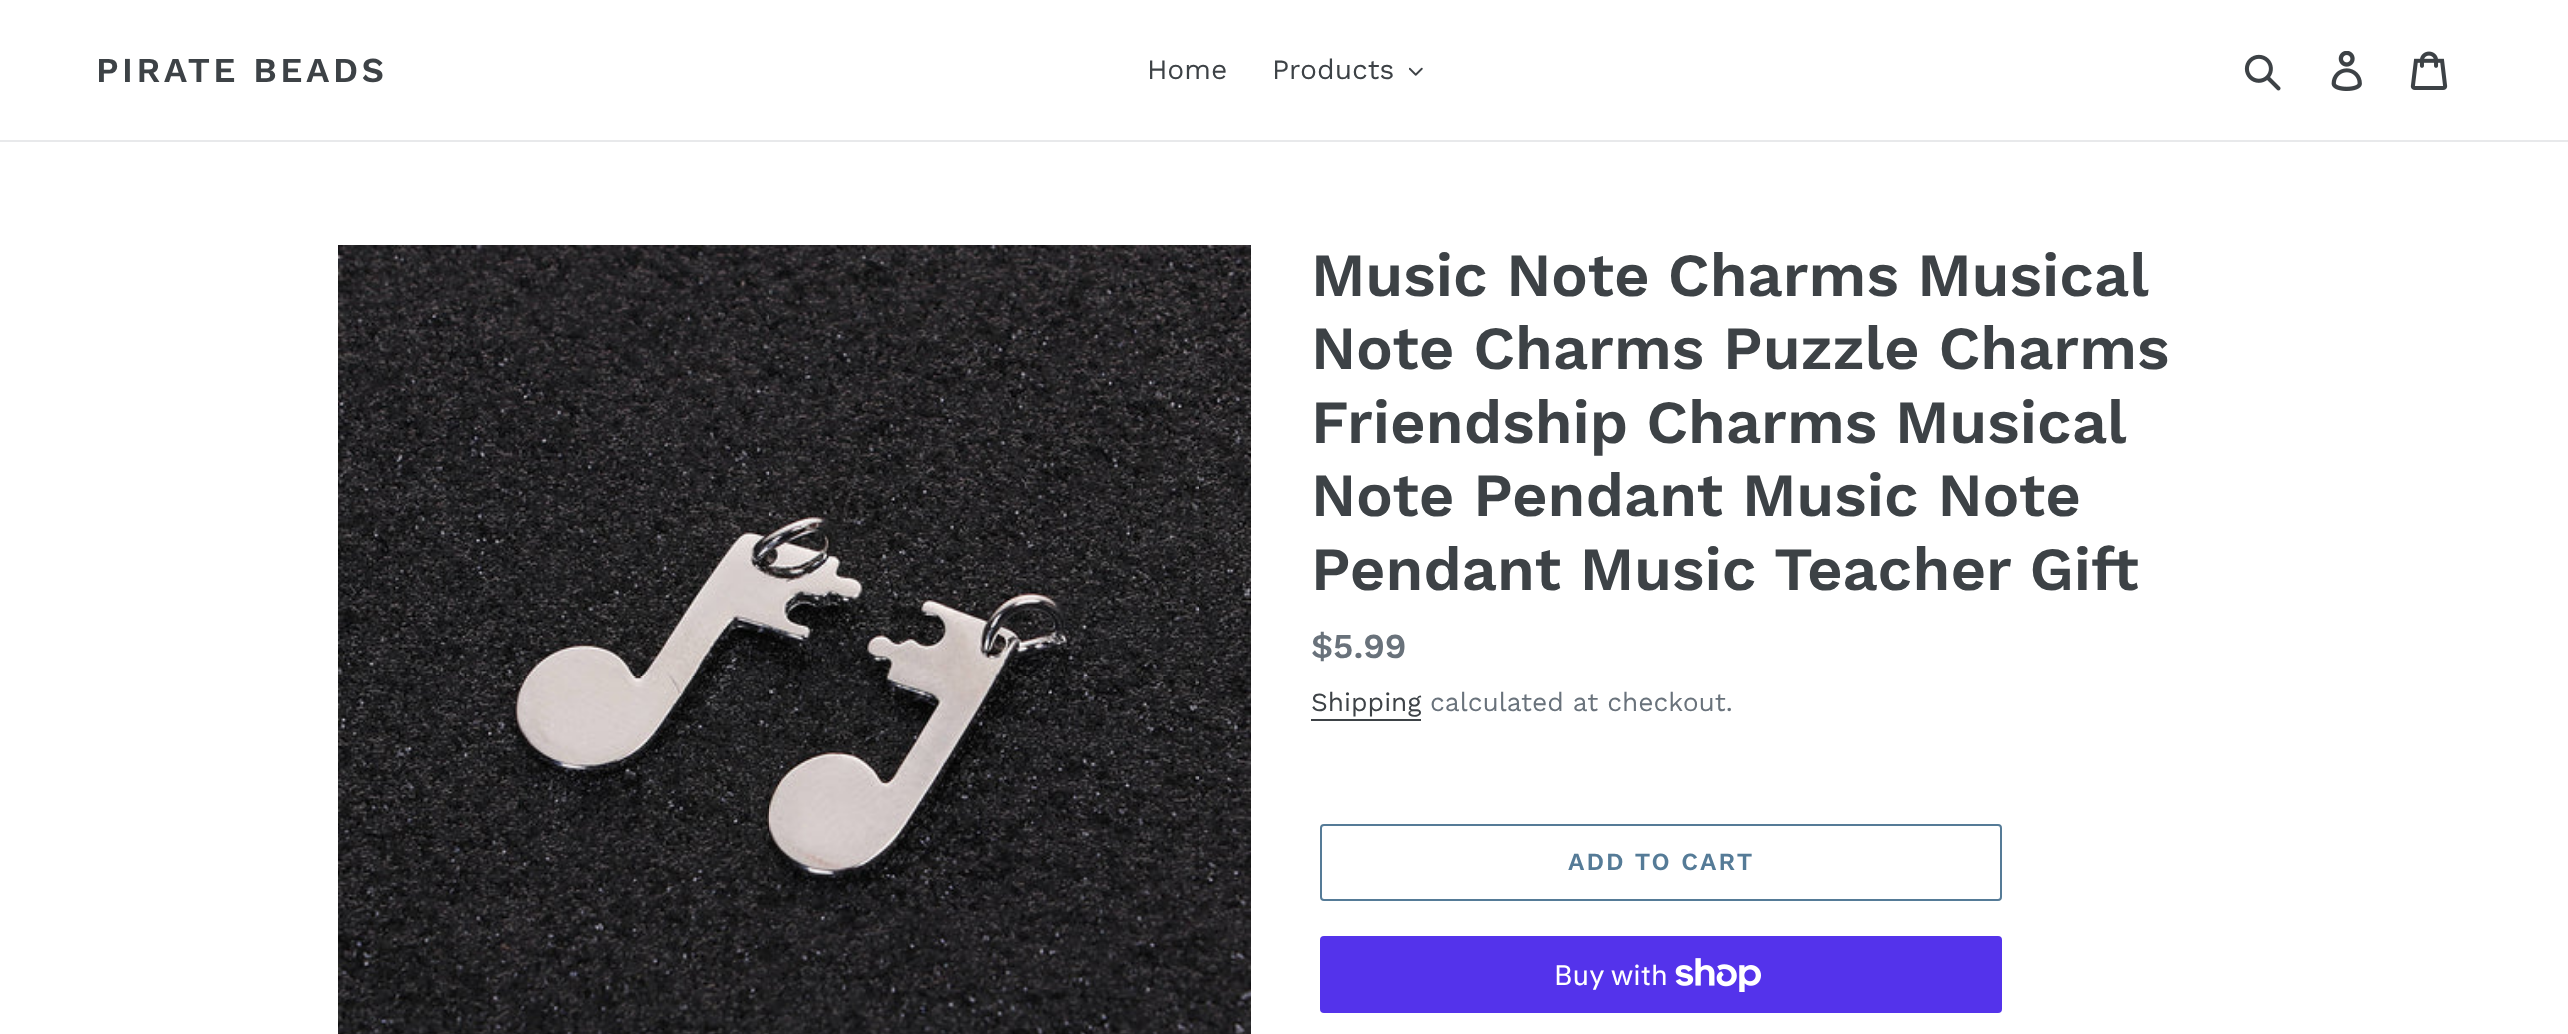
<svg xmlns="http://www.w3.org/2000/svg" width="2568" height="1034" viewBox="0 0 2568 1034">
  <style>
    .t1 { font: 600 35px Work Sans; letter-spacing: 3.5px; fill: #3d4246; }
    .t2 { font: 28px Work Sans; fill: #3d4246; }
    .t3 { font: 600 61.25px Work Sans; fill: #3d4246; }
    .t4 { font: 600 35px Work Sans; fill: #69727b; }
    .t5 { font: 26.25px Work Sans; fill: #3d4246; }
    .t6 { font: 26.25px Work Sans; fill: #69727b; }
    .t7 { font: 600 24.5px Work Sans; letter-spacing: 2px; fill: #557b97; }
    .t8 { font: 28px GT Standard; fill: #fff; }
  </style>
  <rect width="100%" height="100%" fill="#fff"/>
  <rect x="0" y="140" width="2568" height="2" fill="#e8e9eb"/>
  <text x="96" y="82" class="t1">PIRATE BEADS</text>
  <text x="1147" y="79" class="t2">Home</text>
  <text x="1272" y="79" class="t2">Products</text>
  <image x="1409" y="67" width="14" height="9" href="images/1.png"/>
  <image x="2244" y="54" width="37" height="37" href="images/2.png"/>
  <image x="2331" y="51" width="31" height="40" href="images/3.png"/>
  <image x="2410" y="51" width="38" height="39" href="images/4.png"/>
  <image x="338" y="245" width="913" height="789" href="images/5.png"/>
  <text x="1311" y="296" word-spacing="-0.5" class="t3">Music Note Charms Musical</text>
  <text x="1311" y="369" class="t3">Note Charms Puzzle Charms</text>
  <text x="1311" y="443" word-spacing="-1" class="t3">Friendship Charms Musical</text>
  <text x="1311" y="516" class="t3">Note Pendant Music Note</text>
  <text x="1311" y="590" class="t3">Pendant Music Teacher Gift</text>
  <text x="1311" y="658" class="t4">$5.99</text>
  <text x="1311" y="711" class="t5">Shipping</text>
  <rect x="1311" y="719" width="110" height="2" fill="#3d4246"/>
  <text x="1430" y="711" class="t6">calculated at checkout.</text>
  <rect x="1321" y="825" width="680" height="75" rx="3" fill="none" stroke="#557b97" stroke-width="2"/>
  <text x="1568" y="870" class="t7">ADD TO CART</text>
  <rect x="1320" y="936" width="682" height="77" rx="4" fill="#5433eb"/>
  <text x="1554" y="985" class="t8">Buy with</text>
  <image x="1675" y="958" width="86" height="34" href="images/6.png"/>
</svg>
